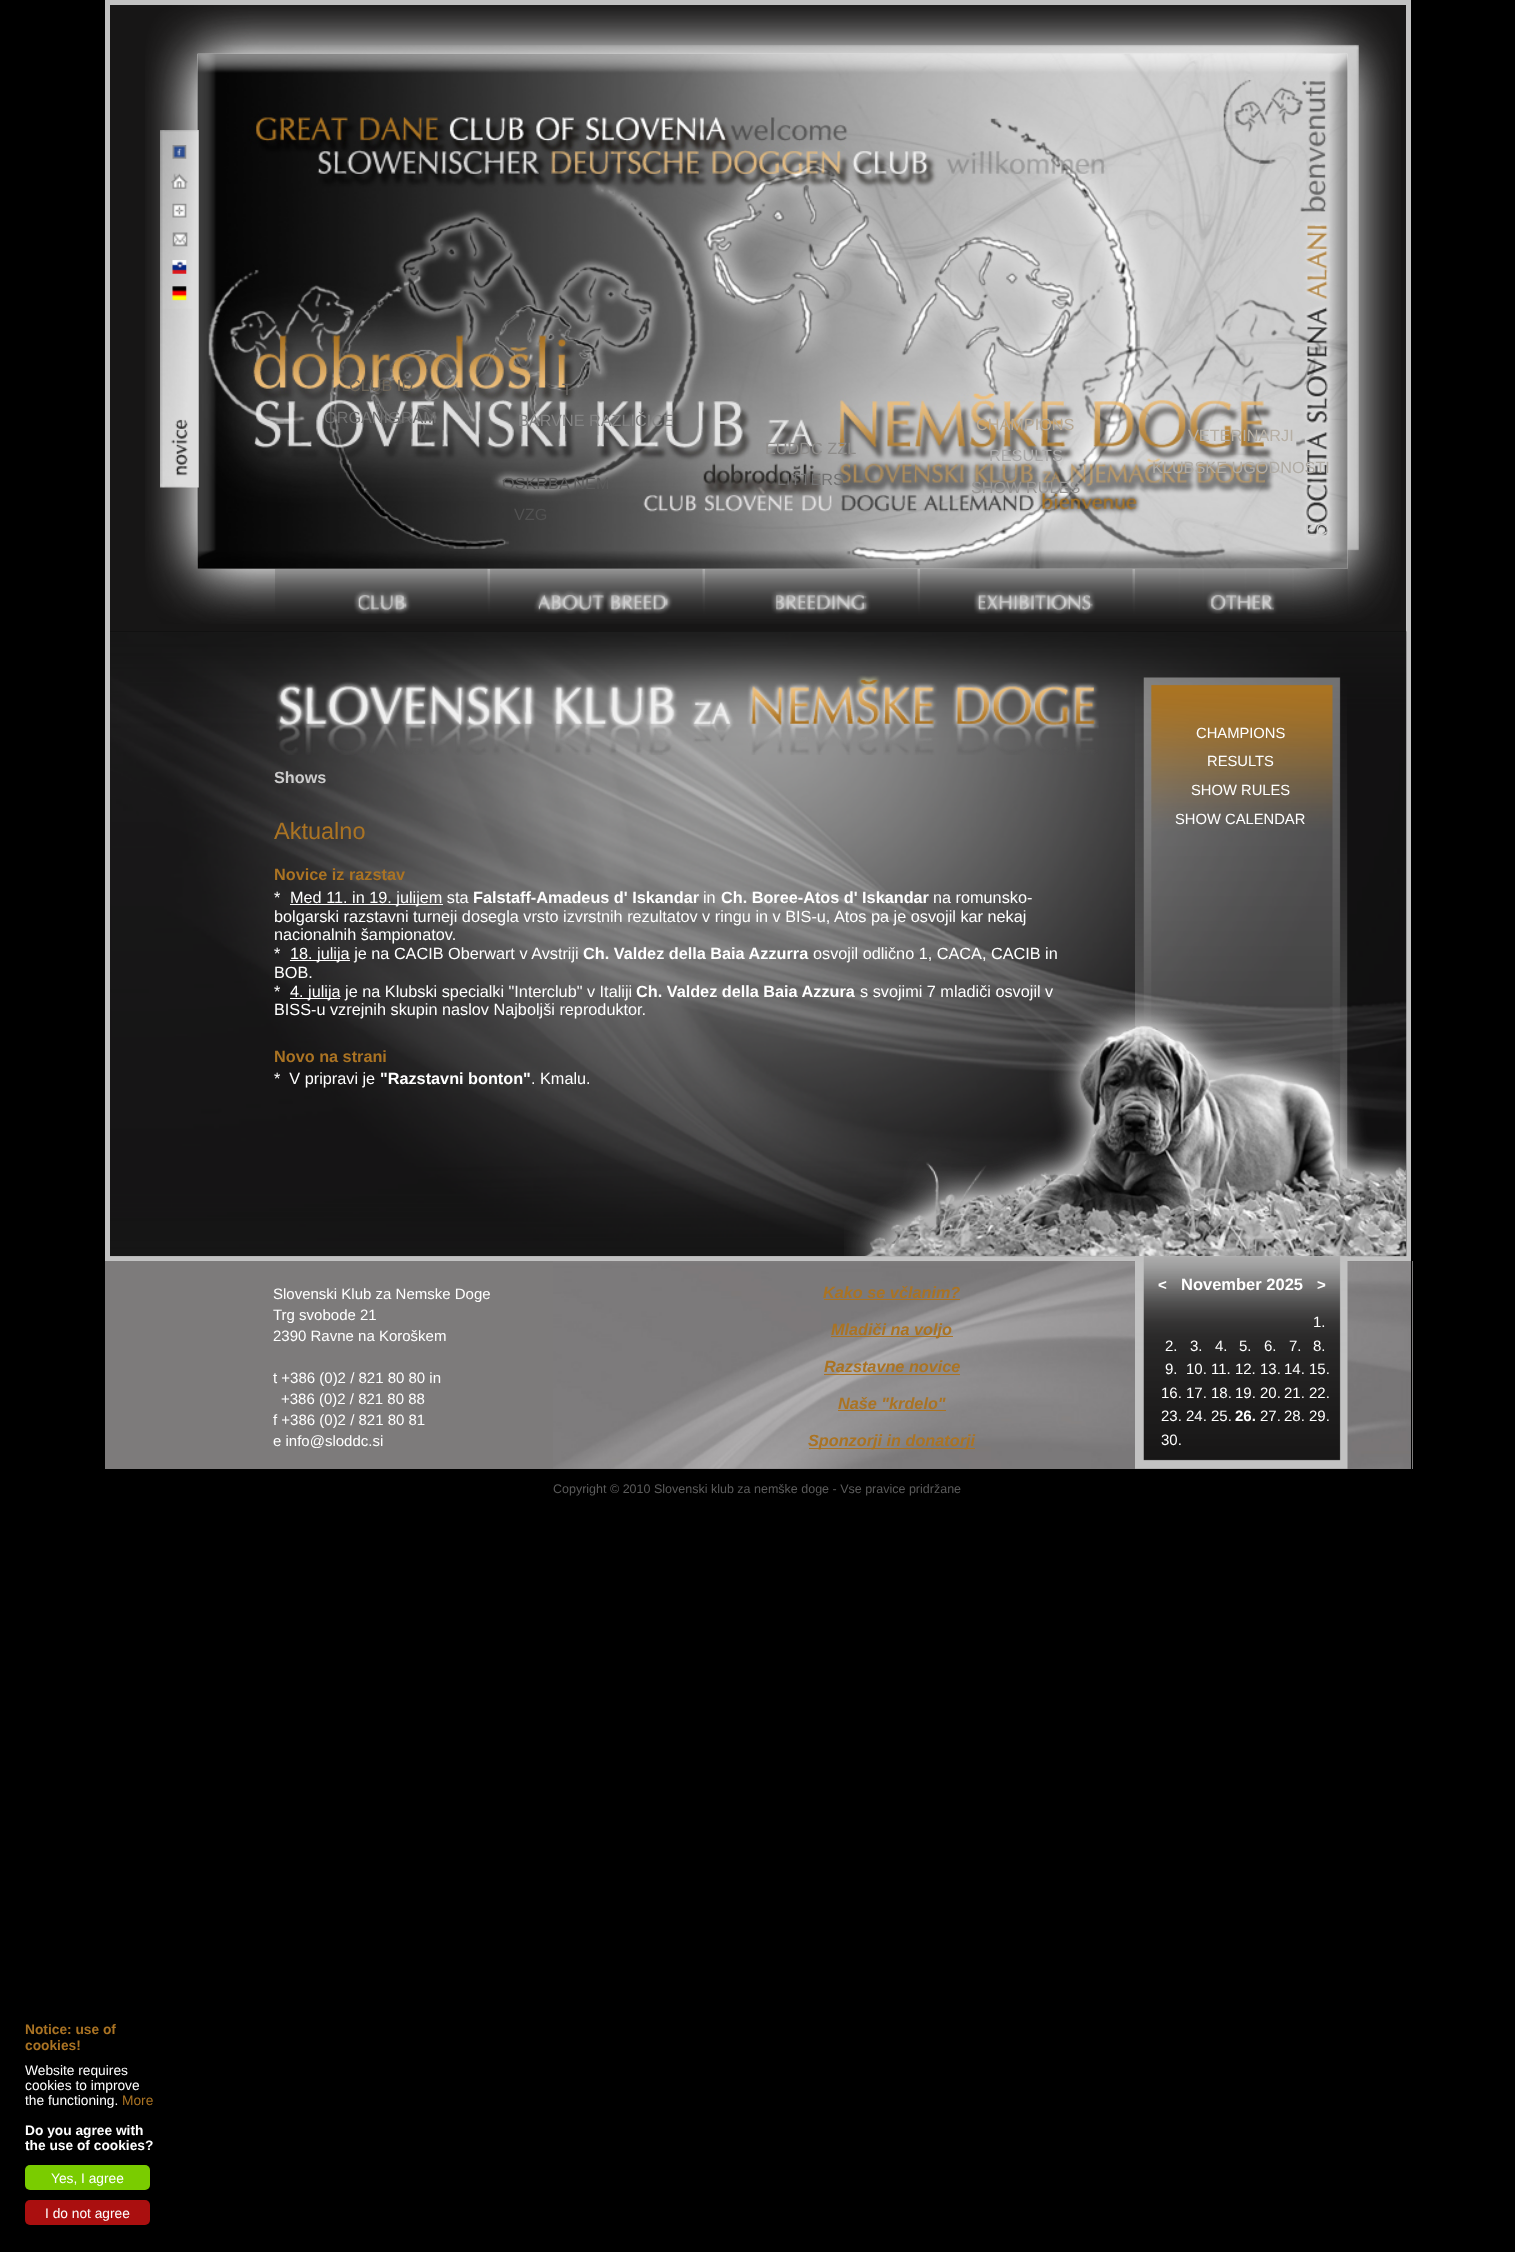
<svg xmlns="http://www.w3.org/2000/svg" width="1515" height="2252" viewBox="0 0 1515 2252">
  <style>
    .t1 { font: 16.25px Liberation Sans; fill: #6d6559; }
    .t2 { font: 16.25px Liberation Sans; fill: #717171; }
    .t3 { font: 16.25px Liberation Sans; fill: #656361; }
    .t4 { font: 16.25px Liberation Sans; fill: #848484; }
    .t5 { font: 16.25px Liberation Sans; fill: #5b5b5b; }
    .t6 { font: 16.25px Liberation Sans; fill: #515151; }
    .t7 { font: 16.25px Liberation Sans; fill: #8e8c8a; }
    .t8 { font: 16.25px Liberation Sans; fill: #b7a995; }
    .t9 { font: 16.25px Liberation Sans; fill: #aaa9a9; }
    .t10 { font: 16.25px Liberation Sans; fill: #989694; }
    .t11 { font: 16.25px Liberation Sans; fill: #b6afa4; }
    .t12 { font: 16.25px Liberation Sans; fill: #b0aca5; }
    .t13 { font: 16.25px Liberation Sans; fill: #ccc; }
    .t14 { font: bold 16.25px Liberation Sans; fill: #ccc; }
    .t15 { font: 23.5px Liberation Sans; fill: #aa7323; }
    .t16 { font: bold 16.25px Liberation Sans; fill: #aa7323; }
    .t17 { font: 16.25px Liberation Sans; fill: #fff; }
    .t18 { font: bold 16.25px Liberation Sans; fill: #fff; }
    .t19 { font: 14.75px Liberation Sans; fill: #fff; }
    .t20 { font: 15px Liberation Sans; fill: #fff; }
    .t21 { font: italic bold 16.25px Liberation Sans; fill: #aa7323; }
    .t22 { font: bold 15px Liberation Sans; fill: #fff; }
    .t23 { font: bold 16.5px Liberation Sans; fill: #fff; }
    .t24 { font: 12.5px Liberation Sans; fill: #5b5b5b; }
    .t25 { font: bold 13.75px Liberation Sans; fill: #aa7323; }
    .t26 { font: 13.75px Liberation Sans; fill: #fff; }
    .t27 { font: 13.75px Liberation Sans; fill: #aa7323; }
    .t28 { font: bold 13.75px Liberation Sans; fill: #fff; }
  </style>
  <rect width="100%" height="100%" fill="#000"/>
  <rect x="107.5" y="2.5" width="1301" height="1256" fill="none" stroke="#c2c2c2" stroke-width="5"/>
  <rect x="110" y="5" width="1296" height="626" fill="#171616"/>
  <image x="145" y="5" width="1256" height="619" href="images/8.png"/>
  <image x="275" y="568" width="213" height="46" href="images/10.png"/>
  <image x="490" y="568" width="213" height="46" href="images/11.png"/>
  <image x="705" y="568" width="213" height="47" href="images/12.png"/>
  <image x="920" y="568" width="213" height="46" href="images/13.png"/>
  <image x="1135" y="568" width="213" height="46" href="images/14.png"/>
  <image x="197" y="53" width="1151" height="516" href="images/9.png"/>
  <image x="160" y="130" width="39" height="358" href="images/1.png"/>
  <image x="172" y="145" width="15" height="14" href="images/2.png"/>
  <image x="171" y="173" width="17" height="16" href="images/3.png"/>
  <image x="172" y="203" width="15" height="15" href="images/4.png"/>
  <image x="172" y="232" width="16" height="15" href="images/5.png"/>
  <image x="172" y="260" width="15" height="14" href="images/6.png"/>
  <image x="172" y="286" width="15" height="15" href="images/7.png"/>
  <text x="349" y="391" class="t1">CLUB ID</text>
  <text x="324" y="423" class="t2">ORGANIGRAM</text>
  <text x="562" y="395" class="t3">T</text>
  <text x="518" y="426" class="t4">BARVNE RAZLIČICE</text>
  <text x="502" y="489" class="t5">OSKRBA NEM</text>
  <text x="514" y="520" class="t6">VZG</text>
  <text x="765" y="454" class="t7">EUDDC ZZL</text>
  <text x="777" y="485" class="t2">LITTERS</text>
  <text x="976" y="430" class="t8">CHAMPIONS</text>
  <text x="989" y="461" class="t9">RESULTS</text>
  <text x="971" y="493" class="t10">SHOW RULES</text>
  <text x="1188" y="441" class="t11">VETERINARJI</text>
  <text x="1152" y="473" class="t12">KLUBSKE UGODNOSTI</text>
  <text x="1305" y="535" class="t13">EC</text>
  <image x="110" y="631" width="1297" height="626" href="images/15.png"/>
  <image x="275" y="675" width="824" height="80" href="images/16.png"/>
  <text x="274" y="783" class="t14">Shows</text>
  <text x="274" y="839" class="t15">Aktualno</text>
  <text x="274" y="880" class="t16">Novice iz razstav</text>
  <text x="274" y="903" class="t17">*</text>
  <rect x="290" y="904" width="153" height="1" fill="#fff"/>
  <text x="290" y="903" class="t17">Med 11. in 19. julijem sta</text>
  <text x="473" y="903" class="t18">Falstaff-Amadeus d' Iskandar</text>
  <text x="703" y="903" class="t17">in</text>
  <text x="721" y="903" class="t18">Ch. Boree-Atos d' Iskandar</text>
  <text x="933" y="903" class="t17">na romunsko-</text>
  <text x="274" y="922" class="t17">bolgarski razstavni turneji dosegla vrsto izvrstnih rezultatov v ringu in v BIS-u, Atos pa je osvojil kar nekaj</text>
  <text x="274" y="940" class="t17">nacionalnih šampionatov.</text>
  <text x="274" y="959" class="t17">*</text>
  <rect x="290" y="960" width="60" height="1" fill="#fff"/>
  <text x="290" y="959" class="t17">18. julija je na CACIB Oberwart v Avstriji</text>
  <text x="583" y="959" class="t18">Ch. Valdez della Baia Azzurra</text>
  <text x="813" y="959" class="t17">osvojil odlično 1, CACA, CACIB in</text>
  <text x="274" y="978" class="t17">BOB.</text>
  <text x="274" y="997" class="t17">*</text>
  <rect x="290" y="998" width="50" height="1" fill="#fff"/>
  <text x="290" y="997" class="t17">4. julija je na Klubski specialki "Interclub" v Italiji</text>
  <text x="636" y="997" class="t18">Ch. Valdez della Baia Azzura</text>
  <text x="860" y="997" class="t17">s svojimi 7 mladiči osvojil v</text>
  <text x="274" y="1015" class="t17">BISS-u vzrejnih skupin naslov Najboljši reproduktor.</text>
  <text x="274" y="1062" class="t16">Novo na strani</text>
  <text x="274" y="1084" class="t17" xml:space="preserve">*  V pripravi je</text>
  <text x="380" y="1084" class="t18">"Razstavni bonton"</text>
  <text x="531" y="1084" class="t17">. Kmalu.</text>
  <image x="1135" y="677" width="213" height="507" href="images/17.png"/>
  <text x="1196" y="738" class="t19">CHAMPIONS</text>
  <text x="1207" y="766" class="t19">RESULTS</text>
  <text x="1191" y="795" class="t19">SHOW RULES</text>
  <text x="1175" y="824" class="t19">SHOW CALENDAR</text>
  <image x="844" y="999" width="563" height="258" href="images/18.png"/>
  <rect x="105" y="1261" width="1308" height="208" fill="#7d7b7b"/>
  <image x="553" y="1261" width="858" height="208" href="images/19.png"/>
  <rect x="1411" y="1261" width="1" height="208" fill="#000"/>
  <text x="273" y="1299" class="t20">Slovenski Klub za Nemske Doge</text>
  <text x="273" y="1320" class="t20">Trg svobode 21</text>
  <text x="273" y="1341" class="t20">2390 Ravne na Koroškem</text>
  <text x="273" y="1383" class="t20">t +386 (0)2 / 821 80 80 in</text>
  <text x="281" y="1404" class="t20">+386 (0)2 / 821 80 88</text>
  <text x="273" y="1425" class="t20">f +386 (0)2 / 821 80 81</text>
  <text x="273" y="1446" class="t20">e info@sloddc.si</text>
  <text x="823" y="1298" class="t21">Kako se včlanim?</text>
  <rect x="824" y="1299" width="136" height="1" fill="#aa7323"/>
  <rect x="831" y="1336" width="122" height="1" fill="#aa7323"/>
  <text x="831" y="1335" class="t21">Mladiči na voljo</text>
  <text x="824" y="1372" class="t21">Razstavne novice</text>
  <rect x="824" y="1374" width="136" height="1" fill="#aa7323"/>
  <text x="838" y="1409" class="t21">Naše "krdelo"</text>
  <rect x="838" y="1410" width="108" height="1" fill="#aa7323"/>
  <rect x="809" y="1448" width="166" height="1" fill="#aa7323"/>
  <text x="808" y="1446" class="t21">Sponzorji in donatorji</text>
  <image x="1135" y="1256" width="213" height="213" href="images/20.png"/>
  <text x="1158" y="1290" class="t22">&lt;</text>
  <text x="1181" y="1290" class="t23">November 2025</text>
  <text x="1317" y="1290" class="t22">&gt;</text>
  <text x="1313" y="1327" class="t20">1.</text>
  <text x="1165" y="1351" class="t20">2.</text>
  <text x="1190" y="1351" class="t20">3.</text>
  <text x="1215" y="1351" class="t20">4.</text>
  <text x="1239" y="1351" class="t20">5.</text>
  <text x="1264" y="1351" class="t20">6.</text>
  <text x="1289" y="1351" class="t20">7.</text>
  <text x="1313" y="1351" class="t20">8.</text>
  <text x="1165" y="1374" class="t20">9.</text>
  <text x="1186" y="1374" class="t20">10. 11. 12.</text>
  <text x="1260" y="1374" class="t20">13.</text>
  <text x="1284" y="1374" class="t20">14.</text>
  <text x="1309" y="1374" class="t20">15.</text>
  <text x="1161" y="1398" class="t20">16.</text>
  <text x="1186" y="1398" class="t20">17.</text>
  <text x="1211" y="1398" class="t20">18.</text>
  <text x="1235" y="1398" class="t20">19.</text>
  <text x="1260" y="1398" class="t20">20.</text>
  <text x="1284" y="1398" class="t20">21.</text>
  <text x="1309" y="1398" class="t20">22.</text>
  <text x="1161" y="1421" class="t20">23.</text>
  <text x="1186" y="1421" class="t20">24.</text>
  <text x="1211" y="1421" class="t20">25.</text>
  <text x="1235" y="1421" class="t22">26.</text>
  <text x="1260" y="1421" class="t20">27.</text>
  <text x="1284" y="1421" class="t20">28.</text>
  <text x="1309" y="1421" class="t20">29.</text>
  <text x="1161" y="1445" class="t20">30.</text>
  <text x="553" y="1493" class="t24">Copyright © 2010 Slovenski klub za nemške doge - Vse pravice pridržane</text>
  <text x="25" y="2034" class="t25">Notice: use of</text>
  <text x="25" y="2050" class="t25">cookies!</text>
  <text x="25" y="2075" class="t26">Website requires</text>
  <text x="25" y="2090" class="t26">cookies to improve</text>
  <text x="25" y="2105" class="t26">the functioning.</text>
  <text x="122" y="2105" class="t27">More</text>
  <text x="25" y="2135" class="t28">Do you agree with</text>
  <text x="25" y="2150" class="t28">the use of cookies?</text>
  <rect x="25" y="2165" width="125" height="25" rx="5" fill="#7acc00"/>
  <text x="51" y="2183" class="t26">Yes, I agree</text>
  <rect x="25" y="2200" width="125" height="25" rx="5" fill="#aa0f0f"/>
  <text x="45" y="2218" class="t26">I do not agree</text>
</svg>
